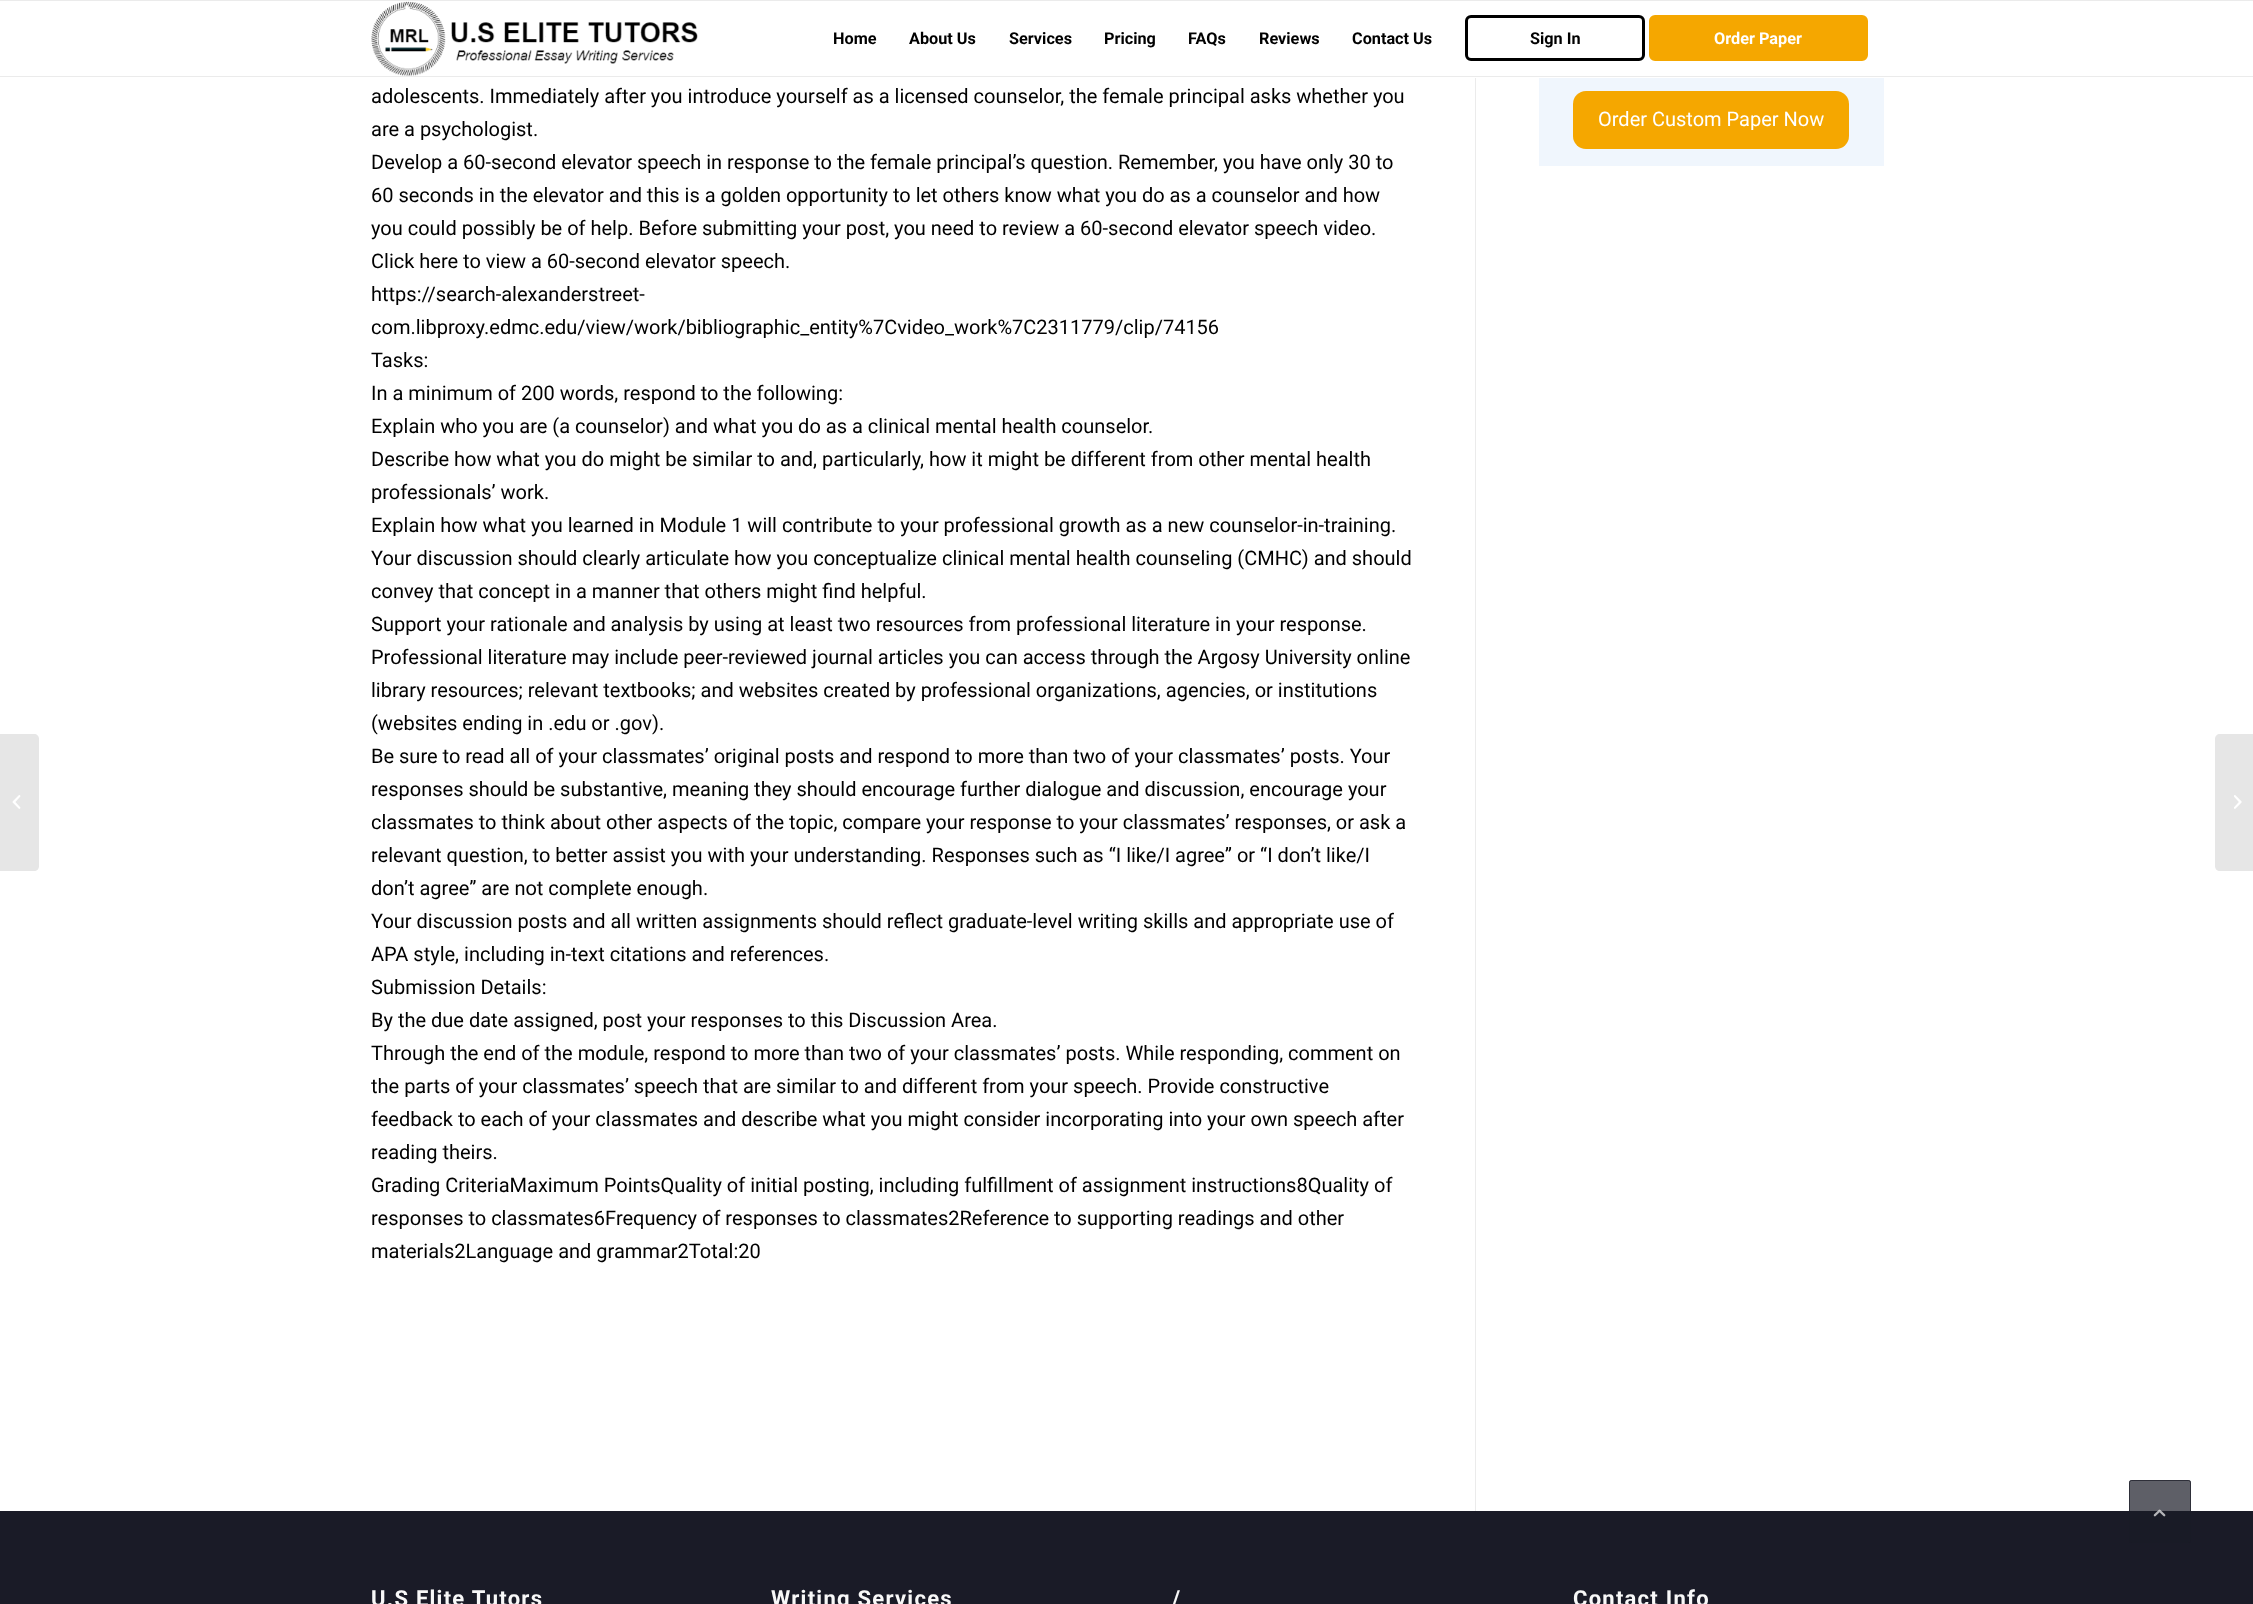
<svg xmlns="http://www.w3.org/2000/svg" width="2253" height="1604" viewBox="0 0 2253 1604">
  <style>
    .t1 { font: bold 16.25px Roboto; fill: #000; }
    .t2 { font: bold 16.25px Roboto; fill: #fff; }
    .t3 { font: 20px Roboto; fill: #000; }
    .t4 { font: 20px Roboto; fill: #fff; }
    .t5 { font: bold 22px Roboto; letter-spacing: 1.25px; fill: #f8f8f8; }
  </style>
  <rect width="100%" height="100%" fill="#fff"/>
  <rect x="0" y="0" width="2253" height="1" fill="#ebebeb"/>
  <rect x="0" y="76" width="2253" height="1" fill="#ebebeb"/>
  <image x="371" y="1" width="327" height="75" href="images/1.png"/>
  <text x="833" y="44" class="t1">Home</text>
  <text x="909" y="44" class="t1">About Us</text>
  <text x="1009" y="44" class="t1">Services</text>
  <text x="1104" y="44" class="t1">Pricing</text>
  <text x="1188" y="44" class="t1">FAQs</text>
  <text x="1259" y="44" class="t1">Reviews</text>
  <text x="1352" y="44" class="t1">Contact Us</text>
  <rect x="1466.5" y="16.5" width="177" height="43" rx="4.5" fill="none" stroke="#000" stroke-width="3"/>
  <text x="1530" y="44" class="t1">Sign In</text>
  <rect x="1650.5" y="16.5" width="216" height="43" rx="4.5" fill="#f5a700" stroke="#f5a700" stroke-width="3"/>
  <text x="1714" y="44" class="t2">Order Paper</text>
  <path d="M0 734H34C37 734 39 736 39 739V866C39 869 37 871 34 871H0Z" fill="#e6e6e6"/>
  <image x="12" y="795" width="9" height="14" href="images/2.png"/>
  <rect x="1475" y="78" width="1" height="1433" fill="#ebebeb"/>
  <text x="371" y="103" class="t3">adolescents. Immediately after you introduce yourself as a licensed counselor, the female principal asks whether you</text>
  <text x="371" y="136" class="t3">are a psychologist.</text>
  <text x="371" y="169" class="t3">Develop a 60-second elevator speech in response to the female principal’s question. Remember, you have only 30 to</text>
  <text x="371" y="202" class="t3">60 seconds in the elevator and this is a golden opportunity to let others know what you do as a counselor and how</text>
  <text x="371" y="235" class="t3">you could possibly be of help. Before submitting your post, you need to review a 60-second elevator speech video.</text>
  <text x="371" y="268" class="t3">Click here to view a 60-second elevator speech.</text>
  <text x="371" y="301" class="t3">https://search-alexanderstreet-</text>
  <text x="371" y="334" class="t3">com.libproxy.edmc.edu/view/work/bibliographic_entity%7Cvideo_work%7C2311779/clip/74156</text>
  <text x="371" y="367" class="t3">Tasks:</text>
  <text x="371" y="400" class="t3">In a minimum of 200 words, respond to the following:</text>
  <text x="371" y="433" class="t3">Explain who you are (a counselor) and what you do as a clinical mental health counselor.</text>
  <text x="371" y="466" class="t3">Describe how what you do might be similar to and, particularly, how it might be different from other mental health</text>
  <text x="371" y="499" class="t3">professionals’ work.</text>
  <text x="371" y="532" class="t3">Explain how what you learned in Module 1 will contribute to your professional growth as a new counselor-in-training.</text>
  <text x="371" y="565" class="t3">Your discussion should clearly articulate how you conceptualize clinical mental health counseling (CMHC) and should</text>
  <text x="371" y="598" class="t3">convey that concept in a manner that others might find helpful.</text>
  <text x="371" y="631" class="t3">Support your rationale and analysis by using at least two resources from professional literature in your response.</text>
  <text x="371" y="664" class="t3">Professional literature may include peer-reviewed journal articles you can access through the Argosy University online</text>
  <text x="371" y="697" class="t3">library resources; relevant textbooks; and websites created by professional organizations, agencies, or institutions</text>
  <text x="371" y="730" class="t3">(websites ending in .edu or .gov).</text>
  <text x="371" y="763" class="t3">Be sure to read all of your classmates’ original posts and respond to more than two of your classmates’ posts. Your</text>
  <text x="371" y="796" class="t3">responses should be substantive, meaning they should encourage further dialogue and discussion, encourage your</text>
  <text x="371" y="829" class="t3">classmates to think about other aspects of the topic, compare your response to your classmates’ responses, or ask a</text>
  <text x="371" y="862" class="t3">relevant question, to better assist you with your understanding. Responses such as “I like/I agree” or “I don’t like/I</text>
  <text x="371" y="895" class="t3">don’t agree” are not complete enough.</text>
  <text x="371" y="928" class="t3">Your discussion posts and all written assignments should reflect graduate-level writing skills and appropriate use of</text>
  <text x="371" y="961" class="t3">APA style, including in-text citations and references.</text>
  <text x="371" y="994" class="t3">Submission Details:</text>
  <text x="371" y="1027" class="t3">By the due date assigned, post your responses to this Discussion Area.</text>
  <text x="371" y="1060" class="t3">Through the end of the module, respond to more than two of your classmates’ posts. While responding, comment on</text>
  <text x="371" y="1093" class="t3">the parts of your classmates’ speech that are similar to and different from your speech. Provide constructive</text>
  <text x="371" y="1126" class="t3">feedback to each of your classmates and describe what you might consider incorporating into your own speech after</text>
  <text x="371" y="1159" class="t3">reading theirs.</text>
  <text x="371" y="1192" class="t3">Grading CriteriaMaximum PointsQuality of initial posting, including fulfillment of assignment instructions8Quality of</text>
  <text x="371" y="1225" class="t3">responses to classmates6Frequency of responses to classmates2Reference to supporting readings and other</text>
  <text x="371" y="1258" class="t3">materials2Language and grammar2Total:20</text>
  <rect x="1539" y="78" width="345" height="88" fill="#f0f6fd"/>
  <rect x="1573" y="91" width="276" height="58" rx="13" fill="#f5a700"/>
  <text x="1598" y="126" class="t4">Order Custom Paper Now</text>
  <rect x="0" y="1511" width="2253" height="93" fill="#1a1b27"/>
  <text x="371" y="1606" class="t5">U.S Elite Tutors</text>
  <text x="771" y="1606" class="t5">Writing Services</text>
  <text x="1172" y="1606" class="t5">/</text>
  <text x="1573" y="1606" class="t5">Contact Info</text>
  <path d="M2220 734H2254V871H2220C2217 871 2215 869 2215 866V739C2215 736 2217 734 2220 734Z" fill="#e6e6e6"/>
  <image x="2234" y="795" width="8" height="14" href="images/3.png"/>
  <rect x="2129" y="1480" width="62" height="63" rx="2.5" fill="#1a1b27b3"/>
  <rect x="2129.5" y="1480.5" width="61" height="62" rx="2" fill="none" stroke="#1a1b27b3"/>
  <image x="2153" y="1509" width="13" height="8" href="images/4.png"/>
</svg>
